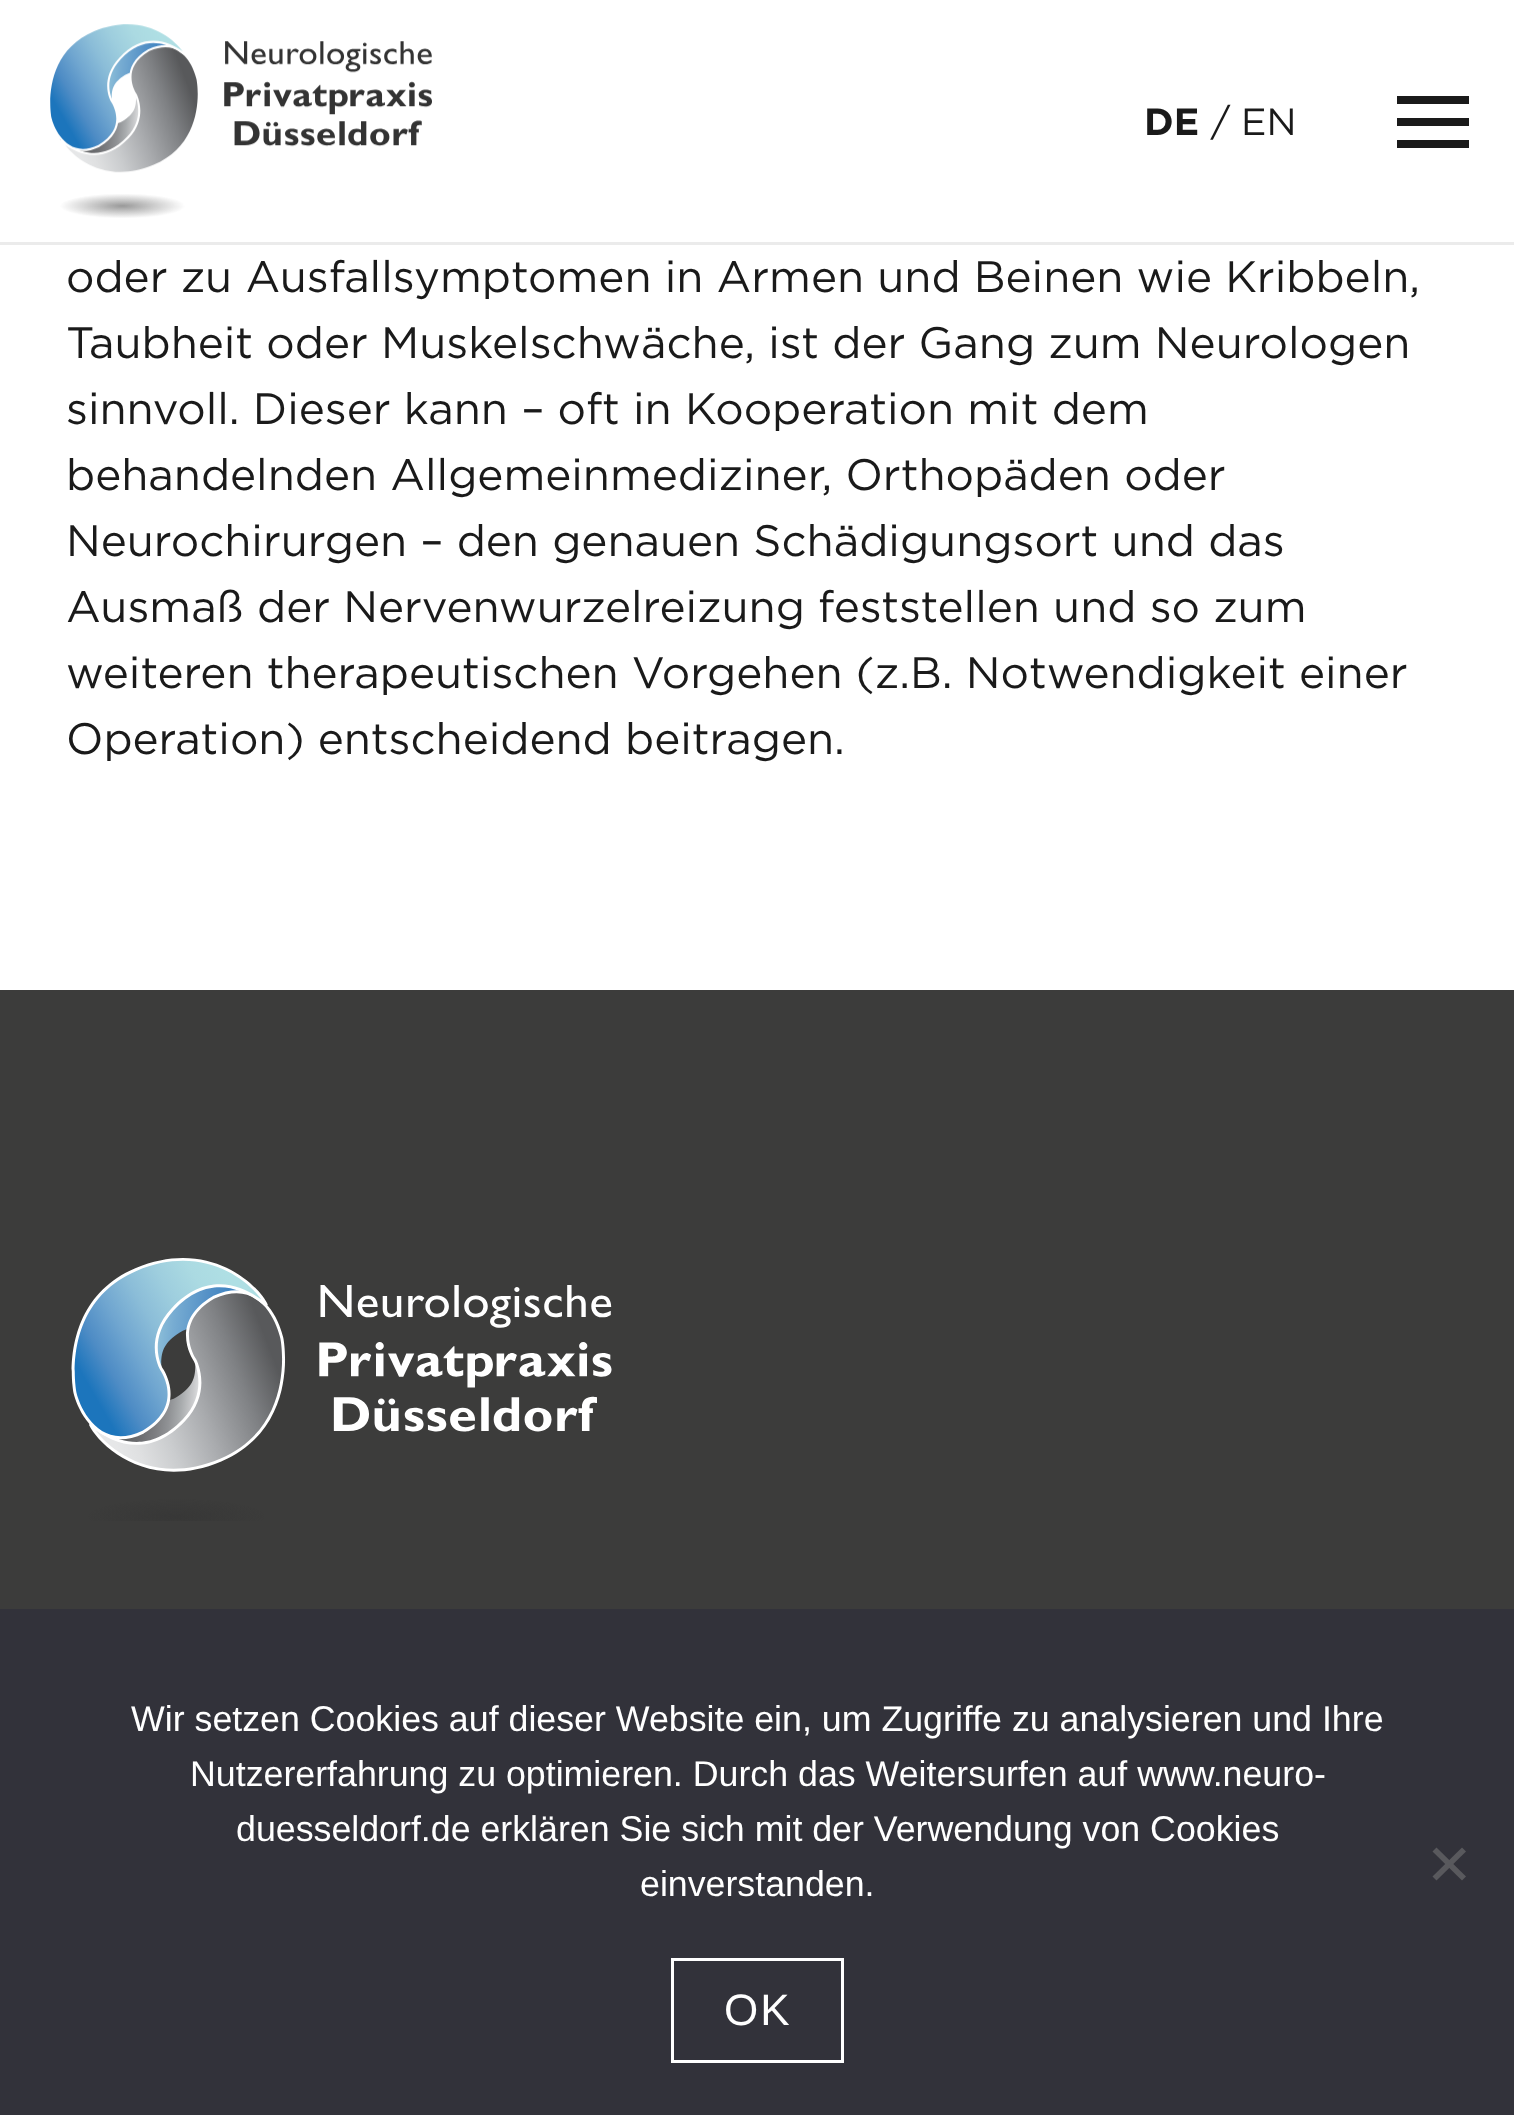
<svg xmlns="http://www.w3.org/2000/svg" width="1514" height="2115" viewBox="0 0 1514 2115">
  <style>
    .t1 { font: bold 38px Gotham; fill: #1a1a1a; }
    .t2 { font: 38px Gotham; fill: #1a1a1a; }
    .t3 { font: 44px Gotham; fill: #1a1a1a; }
    .t4 { font: 35.75px Liberation Sans; fill: #fff; }
    .t5 { font: 44px Liberation Sans; letter-spacing: 2px; fill: #fff; }
  </style>
  <rect width="100%" height="100%" fill="#fff"/>
  <rect x="0" y="242" width="1514" height="3" fill="#ebebeb"/>
  <image x="50" y="24" width="382" height="194" href="images/1.png"/>
  <text x="1144" y="135" class="t1">DE</text>
  <text x="1211" y="135" class="t2">/</text>
  <text x="1241" y="135" class="t2">EN</text>
  <rect x="1397" y="118" width="72" height="8" fill="#1a1a1a"/>
  <rect x="1397" y="96" width="72" height="8" fill="#1a1a1a"/>
  <rect x="1397" y="140" width="72" height="8" fill="#1a1a1a"/>
  <text x="66" y="292" class="t3">oder zu Ausfallsymptomen in Armen und Beinen wie Kribbeln,</text>
  <text x="66" y="358" class="t3">Taubheit oder Muskelschwäche, ist der Gang zum Neurologen</text>
  <text x="66" y="424" class="t3">sinnvoll. Dieser kann – oft in Kooperation mit dem</text>
  <text x="66" y="490" class="t3">behandelnden Allgemeinmediziner, Orthopäden oder</text>
  <text x="66" y="556" class="t3">Neurochirurgen – den genauen Schädigungsort und das</text>
  <text x="66" y="622" class="t3">Ausmaß der Nervenwurzelreizung feststellen und so zum</text>
  <text x="66" y="688" class="t3">weiteren therapeutischen Vorgehen (z.B. Notwendigkeit einer</text>
  <text x="66" y="754" class="t3">Operation) entscheidend beitragen.</text>
  <rect x="0" y="990" width="1514" height="619" fill="#3c3c3b"/>
  <image x="71" y="1258" width="541" height="263" href="images/2.png"/>
  <rect x="0" y="1609" width="1514" height="506" fill="#32323a"/>
  <text x="131" y="1731" class="t4">Wir setzen Cookies auf dieser Website ein, um Zugriffe zu analysieren und Ihre</text>
  <text x="190" y="1786" class="t4">Nutzererfahrung zu optimieren. Durch das Weitersurfen auf www.neuro-</text>
  <text x="236" y="1841" class="t4">duesseldorf.de erklären Sie sich mit der Verwendung von Cookies</text>
  <text x="640" y="1896" class="t4">einverstanden.</text>
  <path d="M1462 1847.5L1466 1851.5L1436.5 1880.5L1432.5 1876.5Z" fill="#59595d"/>
  <path d="M1432.5 1851.5L1436.5 1847.5L1466 1876.5L1462 1880.5Z" fill="#59595d"/>
  <rect x="672.5" y="1959.5" width="170" height="102" fill="none" stroke="#fff" stroke-width="3"/>
  <text x="724" y="2025" class="t5">OK</text>
</svg>
